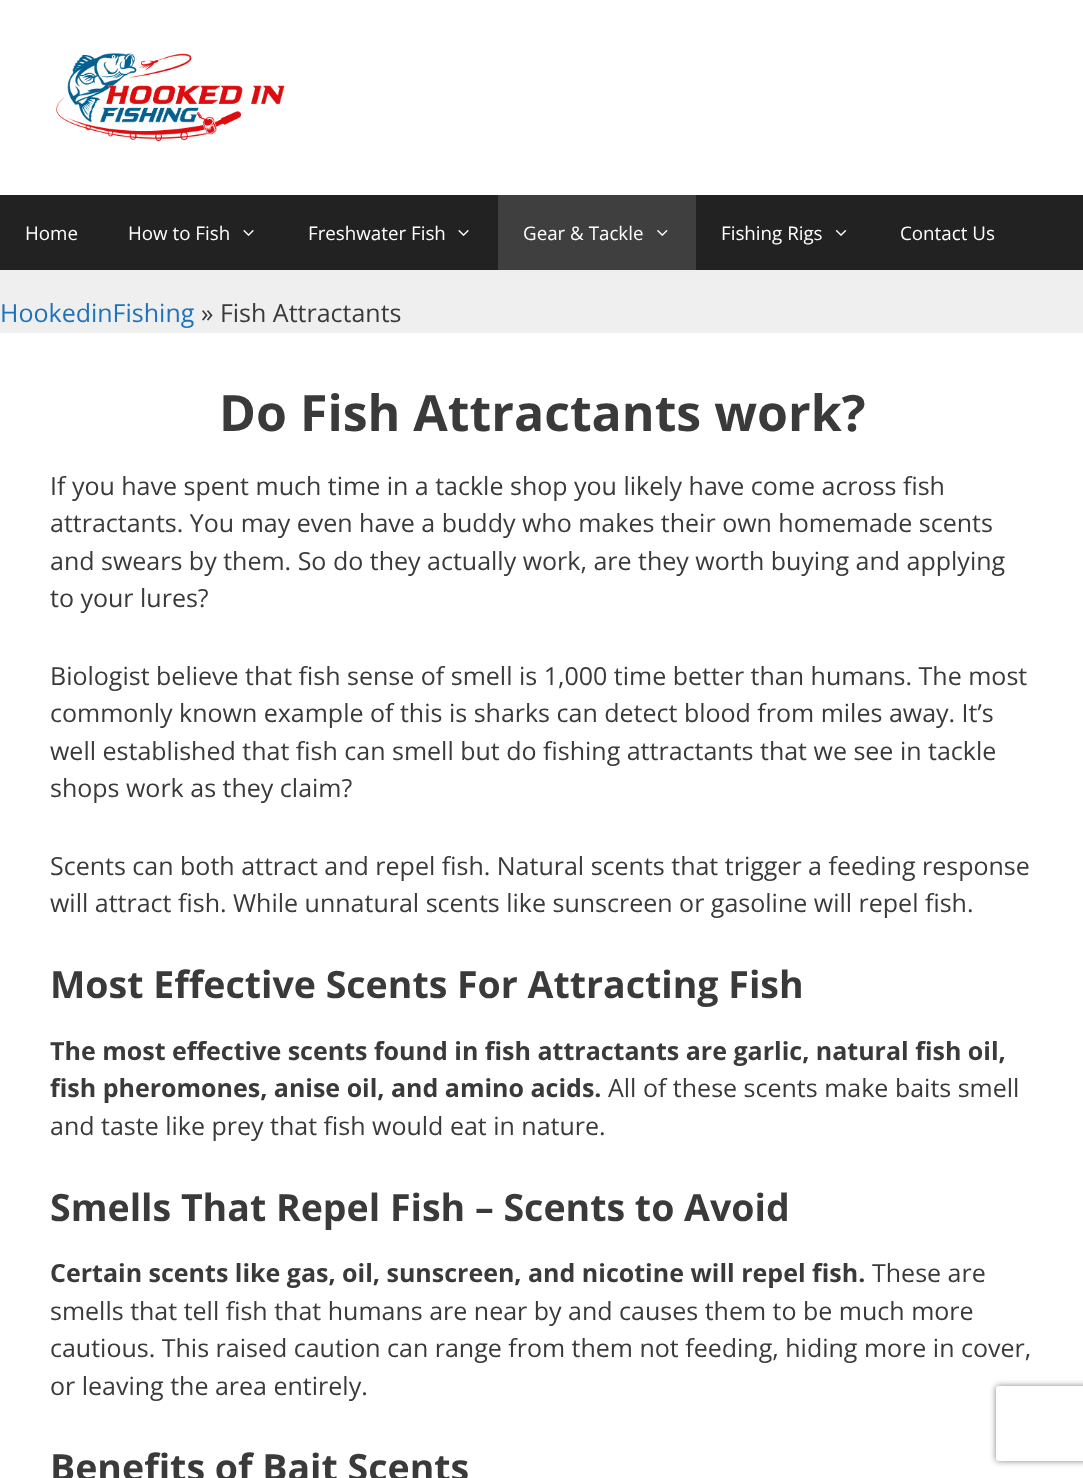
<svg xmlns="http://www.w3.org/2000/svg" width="1083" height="1478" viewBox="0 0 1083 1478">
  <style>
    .t1 { font: 18.75px Open Sans; fill: #fff; }
    .t2 { font: 25px Open Sans; fill: #1e73be; }
    .t3 { font: 25px Open Sans; fill: #3a3a3a; }
    .t4 { font: bold 50px Open Sans; fill: #3a3a3a; }
    .t5 { font: bold 37.5px Open Sans; fill: #3a3a3a; }
    .t6 { font: bold 25px Open Sans; fill: #3a3a3a; }
  </style>
  <defs>
    <clipPath id="clip1"><path d="M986 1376H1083V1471H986ZM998.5 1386H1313.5C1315 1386 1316 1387 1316 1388.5V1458.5C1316 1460 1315 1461 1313.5 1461H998.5C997 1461 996 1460 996 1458.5V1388.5C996 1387 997 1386 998.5 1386Z" clip-rule="evenodd"/></clipPath>
  </defs>
  <rect width="100%" height="100%" fill="#efefef"/>
  <rect x="0" y="0" width="1083" height="195" fill="#fff"/>
  <image x="56" y="53" width="229" height="89" href="images/1.png"/>
  <rect x="0" y="195" width="1083" height="75" fill="#222"/>
  <text x="25" y="240" class="t1">Home</text>
  <text x="128" y="240" class="t1">How to Fish</text>
  <image x="243" y="230" width="11" height="6" href="images/2.png"/>
  <text x="308" y="240" class="t1">Freshwater Fish</text>
  <image x="458" y="230" width="11" height="6" href="images/2.png"/>
  <rect x="498" y="195" width="198" height="75" fill="#3f3f3f"/>
  <text x="523" y="240" class="t1">Gear &amp; Tackle</text>
  <image x="657" y="230" width="11" height="6" href="images/3.png"/>
  <text x="721" y="240" class="t1">Fishing Rigs</text>
  <image x="835" y="230" width="12" height="6" href="images/4.png"/>
  <text x="900" y="240" class="t1">Contact Us</text>
  <text x="0" y="322" class="t2">HookedinFishing</text>
  <text x="201" y="322" class="t3">» Fish Attractants</text>
  <rect x="0" y="333" width="1083" height="1145" fill="#fff"/>
  <text x="219" y="431" class="t4">Do Fish Attractants work?</text>
  <text x="50" y="495" class="t3">If you have spent much time in a tackle shop you likely have come across fish</text>
  <text x="50" y="532" class="t3">attractants. You may even have a buddy who makes their own homemade scents</text>
  <text x="50" y="570" class="t3">and swears by them. So do they actually work, are they worth buying and applying</text>
  <text x="50" y="607" class="t3">to your lures?</text>
  <text x="50" y="685" class="t3">Biologist believe that fish sense of smell is 1,000 time better than humans. The most</text>
  <text x="50" y="722" class="t3">commonly known example of this is sharks can detect blood from miles away. It’s</text>
  <text x="50" y="760" class="t3">well established that fish can smell but do fishing attractants that we see in tackle</text>
  <text x="50" y="797" class="t3">shops work as they claim?</text>
  <text x="50" y="875" class="t3">Scents can both attract and repel fish. Natural scents that trigger a feeding response</text>
  <text x="50" y="912" class="t3">will attract fish. While unnatural scents like sunscreen or gasoline will repel fish.</text>
  <text x="50" y="998" class="t5">Most Effective Scents For Attracting Fish</text>
  <text x="50" y="1060" class="t6">The most effective scents found in fish attractants are garlic, natural fish oil,</text>
  <text x="50" y="1097" class="t6">fish pheromones, anise oil, and amino acids.</text>
  <text x="608" y="1097" class="t3">All of these scents make baits smell</text>
  <text x="50" y="1135" class="t3">and taste like prey that fish would eat in nature.</text>
  <text x="50" y="1221" class="t5">Smells That Repel Fish – Scents to Avoid</text>
  <text x="50" y="1282" class="t6">Certain scents like gas, oil, sunscreen, and nicotine will repel fish.</text>
  <text x="872" y="1282" class="t3">These are</text>
  <text x="50" y="1320" class="t3">smells that tell fish that humans are near by and causes them to be much more</text>
  <text x="50" y="1357" class="t3">cautious. This raised caution can range from them not feeding, hiding more in cover,</text>
  <text x="50" y="1395" class="t3">or leaving the area entirely.</text>
  <text x="50" y="1481" class="t5">Benefits of Bait Scents</text>
  <g clip-path="url(#clip1)">
    <rect x="996" y="1386" width="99" height="75" rx="2.5" fill="#808080" filter="blur(3px)"/>
  </g>
</svg>
